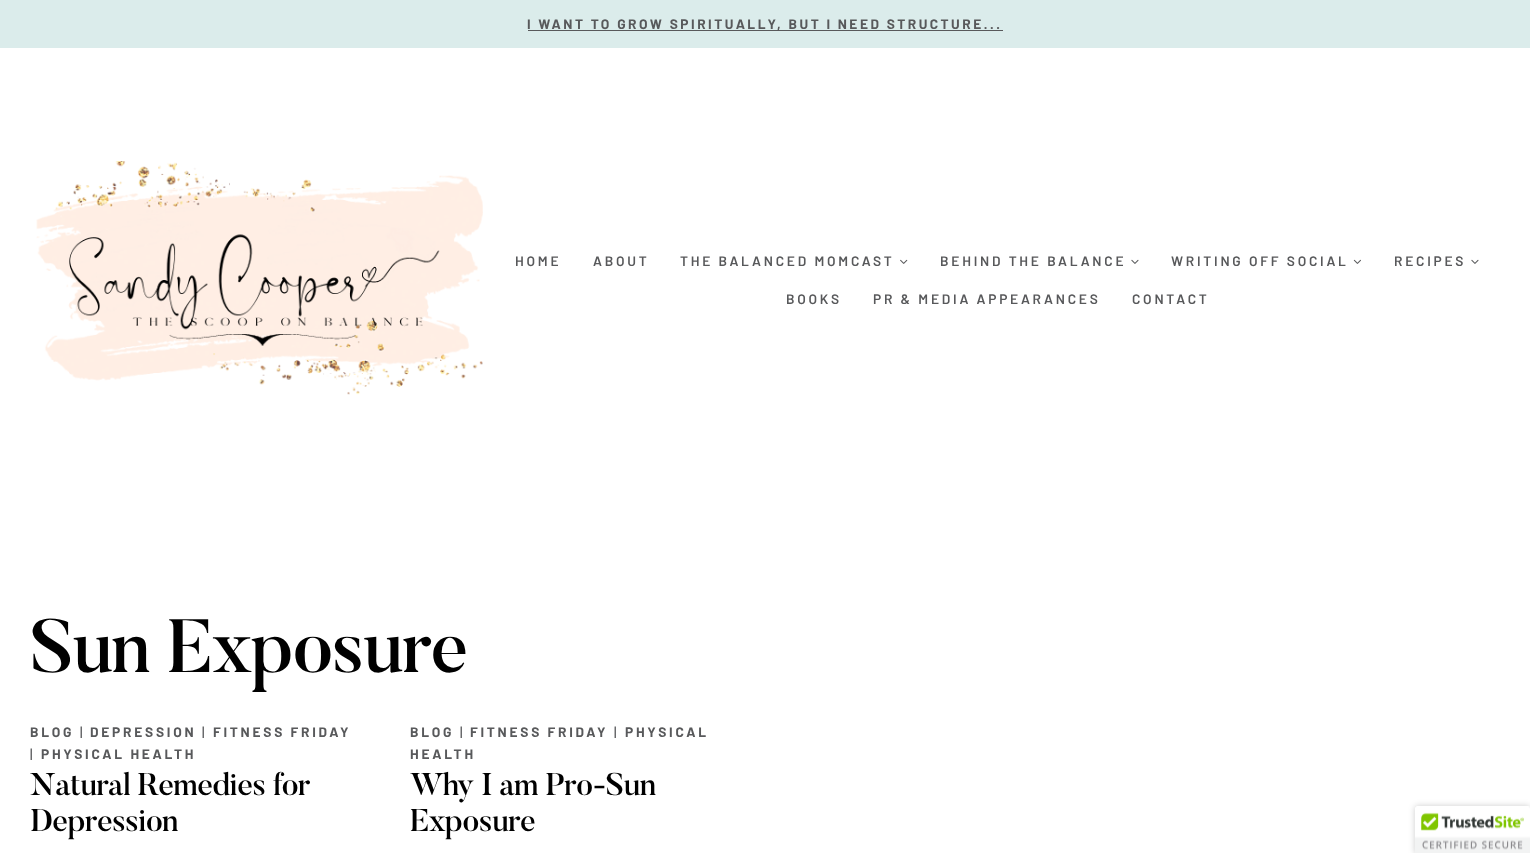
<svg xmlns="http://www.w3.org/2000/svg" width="1530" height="853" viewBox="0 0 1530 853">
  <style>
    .t1 { font: bold 13.75px Barlow; letter-spacing: 2.5px; fill: #58595b; }
    .t2 { font: 600 13.75px Barlow; letter-spacing: 2.75px; fill: #58595b; }
    .t3 { font: 500 75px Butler; letter-spacing: -1.5px; fill: #000; }
    .t4 { font: bold 13.75px Barlow; letter-spacing: 2.75px; fill: #58595b; }
    .t5 { font: 500 13.75px Barlow; letter-spacing: 2.75px; fill: #58595b; }
    .t6 { font: 500 31.25px Butler; letter-spacing: -0.6px; fill: #000; }
  </style>
  <rect width="100%" height="100%" fill="#fff"/>
  <rect x="0" y="0" width="1530" height="48" fill="#dbeceb"/>
  <rect x="528" y="30" width="475" height="1" fill="#58595b"/>
  <text x="527" y="29" class="t1">I WANT TO GROW SPIRITUALLY, BUT I NEED STRUCTURE...</text>
  <image x="36" y="161" width="447" height="234" href="images/1.png"/>
  <text x="515" y="266" class="t2">HOME</text>
  <text x="593" y="266" class="t2">ABOUT</text>
  <text x="680" y="266" class="t2">THE BALANCED MOMCAST</text>
  <image x="900" y="259" width="8" height="5" href="images/2.png"/>
  <text x="940" y="266" class="t2">BEHIND THE BALANCE</text>
  <image x="1131" y="259" width="8" height="5" href="images/3.png"/>
  <text x="1171" y="266" class="t2">WRITING OFF SOCIAL</text>
  <image x="1353" y="259" width="8" height="5" href="images/4.png"/>
  <text x="1394" y="266" class="t2">RECIPES</text>
  <image x="1471" y="259" width="8" height="5" href="images/3.png"/>
  <text x="786" y="304" class="t2">BOOKS</text>
  <text x="873" y="304" class="t2">PR &amp; MEDIA APPEARANCES</text>
  <text x="1132" y="304" class="t2">CONTACT</text>
  <text x="30" y="672" class="t3">Sun Exposure</text>
  <text x="30" y="737" class="t4">BLOG</text>
  <text x="80" y="737" class="t5">|</text>
  <text x="90" y="737" class="t4">DEPRESSION</text>
  <text x="202" y="737" class="t5">|</text>
  <text x="213" y="737" class="t4">FITNESS FRIDAY</text>
  <text x="30" y="759" class="t5">|</text>
  <text x="41" y="759" class="t4">PHYSICAL HEALTH</text>
  <text x="30" y="795" class="t6">Natural Remedies for</text>
  <text x="30" y="831" class="t6">Depression</text>
  <text x="410" y="737" class="t4">BLOG</text>
  <text x="460" y="737" class="t5">|</text>
  <text x="470" y="737" class="t4">FITNESS FRIDAY</text>
  <text x="614" y="737" class="t5">|</text>
  <text x="625" y="737" class="t4">PHYSICAL</text>
  <text x="410" y="759" class="t4">HEALTH</text>
  <text x="410" y="795" class="t6">Why I am Pro-Sun</text>
  <text x="410" y="831" class="t6">Exposure</text>
  <rect x="1415" y="806" width="115" height="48" rx="2.5" fill="#00000033" filter="blur(3px)"/>
  <path d="M1417.5 806H1530V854H1415V808.5C1415 807 1416 806 1417.5 806Z" fill="#fff"/>
  <image x="1415" y="806" width="115" height="47" href="images/5.png"/>
</svg>
